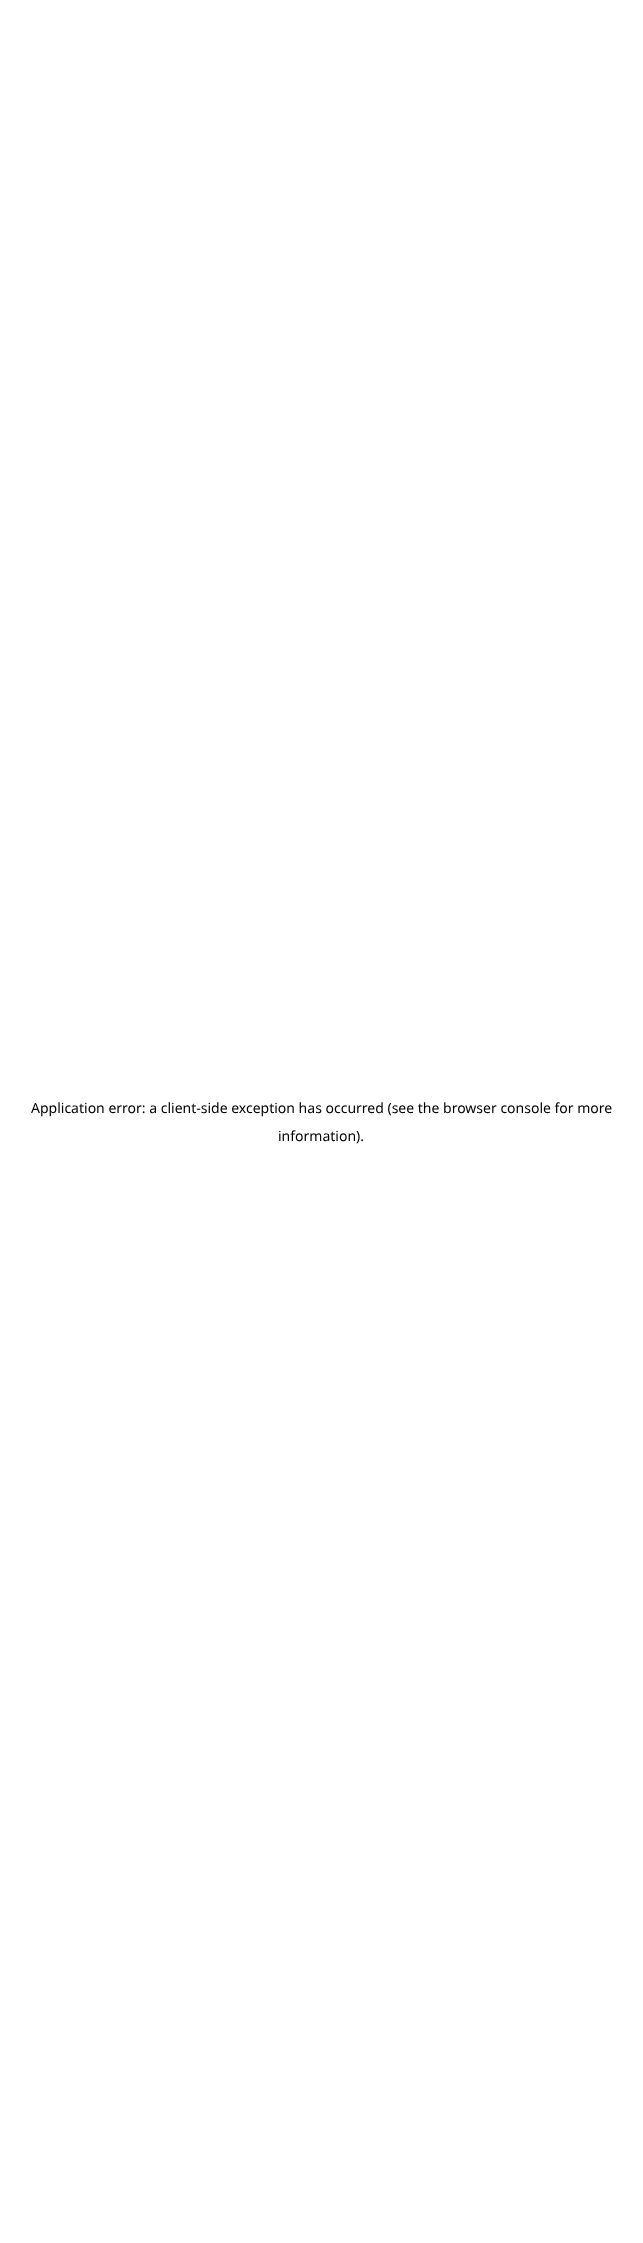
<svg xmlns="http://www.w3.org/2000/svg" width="643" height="2243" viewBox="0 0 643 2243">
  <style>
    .t1 { font: 14px Noto Sans; fill: #000; }
  </style>
  <rect width="100%" height="100%" fill="#fff"/>
  <text x="31" y="1113" class="t1">Application error: a client-side exception has occurred (see the browser console for more</text>
  <text x="278" y="1141" class="t1">information).</text>
</svg>
